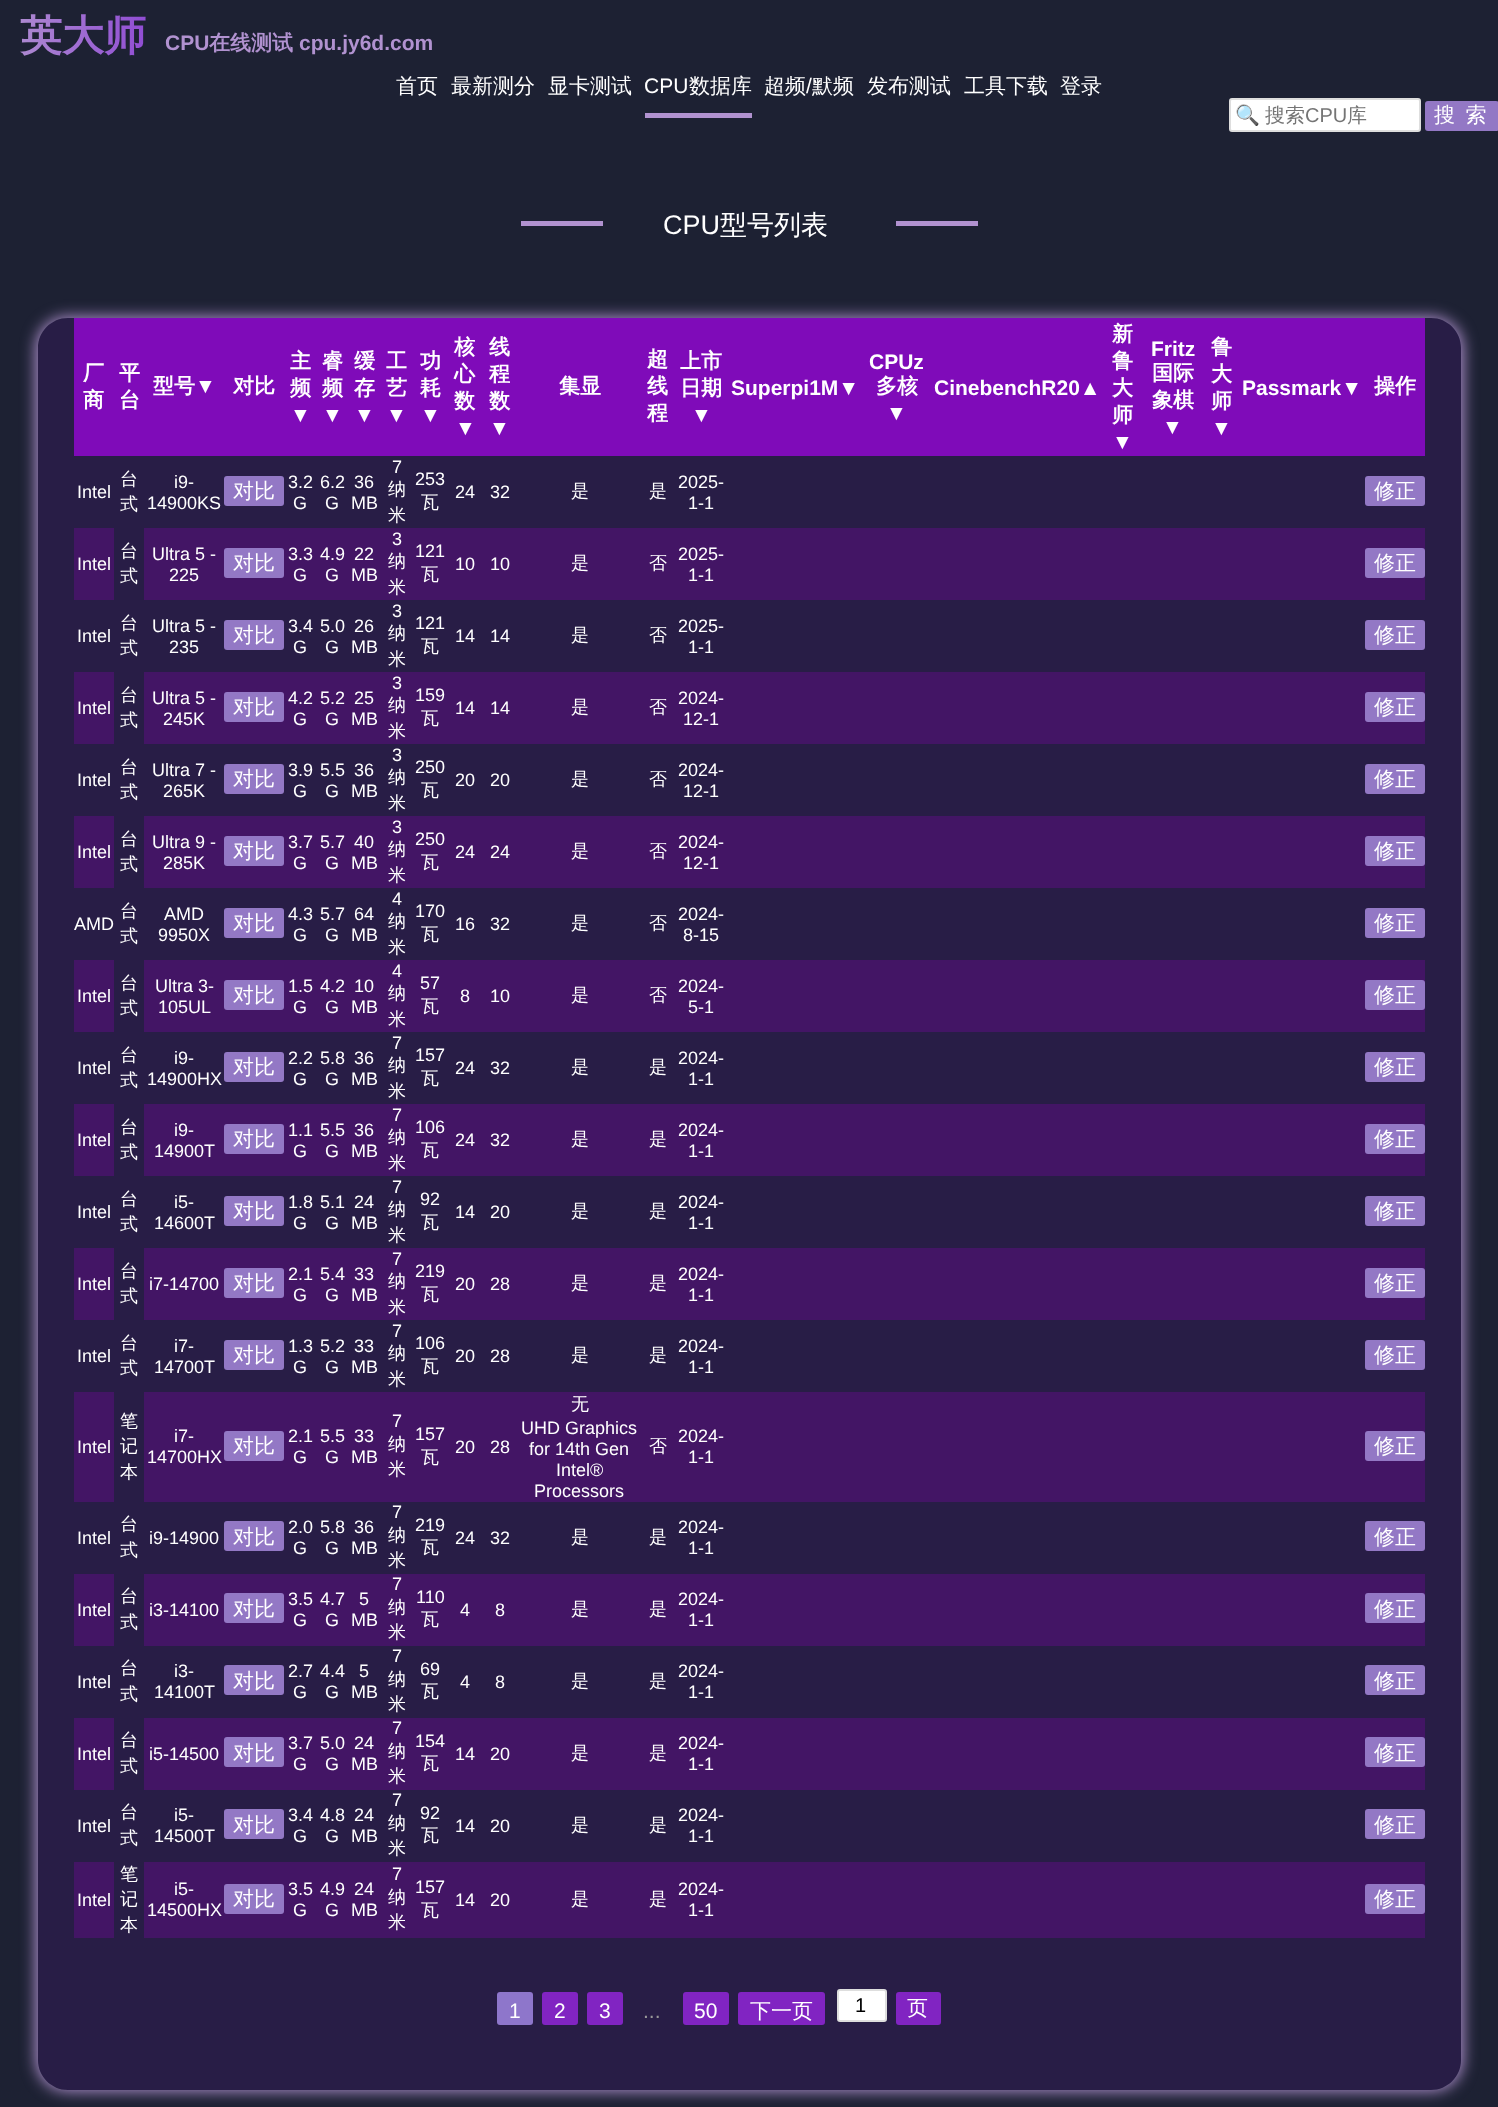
<svg xmlns="http://www.w3.org/2000/svg" width="1498" height="2107" viewBox="0 0 1498 2107">
  <style>
    .t1 { font: bold 42px WenQuanYi Zen Hei; fill: url(#g1); }
    .t2 { font: bold 21px Liberation Sans; fill: #b192d0; }
    .t3 { font: bold 21px WenQuanYi Zen Hei; fill: #b192d0; }
    .t4 { font: 500 21px WenQuanYi Zen Hei; fill: #fff; }
    .t5 { font: 21px Liberation Sans; fill: #fff; }
    .t6 { font: 20px Noto Color Emoji; fill: #757575; }
    .t7 { font: 500 20px WenQuanYi Zen Hei; fill: #757575; }
    .t8 { font: 20px Liberation Sans; fill: #757575; }
    .t9 { font: 27px Liberation Sans; fill: #fff; }
    .t10 { font: 500 27px WenQuanYi Zen Hei; fill: #fff; }
    .t11 { font: bold 21px WenQuanYi Zen Hei; fill: #fff; }
    .t12 { font: bold 21px Liberation Sans; fill: #fff; }
    .t13 { font: 18px Liberation Sans; fill: #fff; }
    .t14 { font: 500 18px WenQuanYi Zen Hei; fill: #fff; }
    .t15 { font: 21px Liberation Sans; fill: #999; }
    .t16 { font: 20px Liberation Sans; fill: #000; }
  </style>
  <defs>
    <linearGradient id="g1" gradientUnits="userSpaceOnUse" x1="0" y1="36" x2="165" y2="36"><stop offset="0" stop-color="#b192d0"/><stop offset="1" stop-color="#8c44d4"/></linearGradient>
    <clipPath id="clip1"><rect x="1235" y="102" width="180" height="27"/></clipPath>
    <clipPath id="clip2"><path d="M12 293H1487V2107H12ZM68 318H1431C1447.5 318 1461 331.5 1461 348V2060C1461 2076.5 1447.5 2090 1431 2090H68C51.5 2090 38 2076.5 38 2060V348C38 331.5 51.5 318 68 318Z" clip-rule="evenodd"/></clipPath>
  </defs>
  <rect width="100%" height="100%" fill="#1d2133"/>
  <text x="20" y="50" class="t1">英大师</text>
  <text x="165" y="50" class="t2">CPU</text>
  <text x="209" y="50" class="t3">在线测试</text>
  <text x="299" y="50" class="t2">cpu.jy6d.com</text>
  <text x="396" y="93" class="t4">首页</text>
  <text x="451" y="93" class="t4">最新测分</text>
  <text x="548" y="93" class="t4">显卡测试</text>
  <text x="644" y="93" class="t5">CPU</text>
  <rect x="645" y="113" width="107" height="5" fill="#b192d0"/>
  <text x="689" y="93" class="t4">数据库</text>
  <text x="764" y="93" class="t4">超频</text>
  <text x="806" y="93" class="t5">/</text>
  <text x="812" y="93" class="t4">默频</text>
  <text x="867" y="93" class="t4">发布测试</text>
  <text x="964" y="93" class="t4">工具下载</text>
  <text x="1060" y="93" class="t4">登录</text>
  <rect x="1230" y="99" width="190" height="32" rx="2" fill="#fff" stroke="#dedede" stroke-width="2"/>
  <g clip-path="url(#clip1)">
    <text x="1235" y="122" class="t6">🔍</text>
  </g>
  <text x="1265" y="122" class="t7">搜索</text>
  <text x="1305" y="122" class="t8">CPU</text>
  <text x="1347" y="122" class="t7">库</text>
  <rect x="1425" y="101" width="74" height="30" rx="3" fill="#9378c5"/>
  <text x="1434" y="122" word-spacing="-1" class="t4" xml:space="preserve">搜  索</text>
  <rect x="521" y="221" width="82" height="5" fill="#b192d0"/>
  <text x="663" y="234" class="t9">CPU</text>
  <text x="720" y="234" class="t10">型号列表</text>
  <rect x="896" y="221" width="82" height="5" fill="#b192d0"/>
  <g clip-path="url(#clip2)">
    <rect x="36" y="317" width="1427" height="1774" rx="32" fill="#b192d0" filter="blur(7.5px)"/>
  </g>
  <rect x="38" y="318" width="1423" height="1772" rx="30" fill="#8e00fa1a"/>
  <rect x="74" y="318" width="1351" height="138" fill="#7f0bb9"/>
  <text x="83" y="380" class="t11">厂</text>
  <text x="83" y="407" class="t11">商</text>
  <text x="119" y="380" class="t11">平</text>
  <text x="119" y="407" class="t11">台</text>
  <text x="153" y="393" class="t11">型号</text>
  <text x="195" y="393" class="t12">▼</text>
  <text x="233" y="393" class="t11">对比</text>
  <text x="290" y="368" class="t11">主</text>
  <text x="290" y="395" class="t11">频</text>
  <text x="290" y="422" class="t12">▼</text>
  <text x="322" y="368" class="t11">睿</text>
  <text x="322" y="395" class="t11">频</text>
  <text x="322" y="422" class="t12">▼</text>
  <text x="354" y="368" class="t11">缓</text>
  <text x="354" y="395" class="t11">存</text>
  <text x="354" y="422" class="t12">▼</text>
  <text x="386" y="368" class="t11">工</text>
  <text x="386" y="395" class="t11">艺</text>
  <text x="386" y="422" class="t12">▼</text>
  <text x="420" y="368" class="t11">功</text>
  <text x="420" y="395" class="t11">耗</text>
  <text x="420" y="422" class="t12">▼</text>
  <text x="454" y="354" class="t11">核</text>
  <text x="454" y="381" class="t11">心</text>
  <text x="454" y="408" class="t11">数</text>
  <text x="455" y="435" class="t12">▼</text>
  <text x="489" y="354" class="t11">线</text>
  <text x="489" y="381" class="t11">程</text>
  <text x="489" y="408" class="t11">数</text>
  <text x="489" y="435" class="t12">▼</text>
  <text x="559" y="393" class="t11">集显</text>
  <text x="647" y="366" class="t11">超</text>
  <text x="647" y="393" class="t11">线</text>
  <text x="647" y="420" class="t11">程</text>
  <text x="680" y="368" class="t11">上市</text>
  <text x="680" y="395" class="t11">日期</text>
  <text x="691" y="422" class="t12">▼</text>
  <text x="731" y="395" class="t12">Superpi1M▼</text>
  <text x="869" y="369" class="t12">CPUz</text>
  <text x="876" y="393" class="t11">多核</text>
  <text x="886" y="420" class="t12">▼</text>
  <text x="934" y="395" class="t12">CinebenchR20▲</text>
  <text x="1112" y="341" class="t11">新</text>
  <text x="1112" y="368" class="t11">鲁</text>
  <text x="1112" y="395" class="t11">大</text>
  <text x="1112" y="422" class="t11">师</text>
  <text x="1112" y="449" class="t12">▼</text>
  <text x="1151" y="356" class="t12">Fritz</text>
  <text x="1152" y="380" class="t11">国际</text>
  <text x="1152" y="407" class="t11">象棋</text>
  <text x="1162" y="434" class="t12">▼</text>
  <text x="1211" y="354" class="t11">鲁</text>
  <text x="1211" y="381" class="t11">大</text>
  <text x="1211" y="408" class="t11">师</text>
  <text x="1211" y="435" class="t12">▼</text>
  <text x="1242" y="395" class="t12">Passmark▼</text>
  <text x="1374" y="393" class="t11">操作</text>
  <text x="77" y="498" class="t13">Intel</text>
  <text x="120" y="485" class="t14">台</text>
  <text x="120" y="510" class="t14">式</text>
  <text x="174" y="488" class="t13">i9-</text>
  <text x="147" y="509" class="t13">14900KS</text>
  <rect x="224" y="476" width="60" height="30" rx="3" fill="#9378c5"/>
  <text x="233" y="498" class="t4">对比</text>
  <text x="288" y="488" class="t13">3.2</text>
  <text x="293" y="509" class="t13">G</text>
  <text x="320" y="488" class="t13">6.2</text>
  <text x="325" y="509" class="t13">G</text>
  <text x="354" y="488" class="t13">36</text>
  <text x="351" y="509" class="t13">MB</text>
  <text x="392" y="473" class="t13">7</text>
  <text x="388" y="495" class="t14">纳</text>
  <text x="388" y="521" class="t14">米</text>
  <text x="415" y="485" class="t13">253</text>
  <text x="421" y="508" class="t14">瓦</text>
  <text x="455" y="498" class="t13">24</text>
  <text x="490" y="498" class="t13">32</text>
  <text x="571" y="497" class="t14">是</text>
  <text x="649" y="497" class="t14">是</text>
  <text x="678" y="488" class="t13">2025-</text>
  <text x="688" y="509" class="t13">1-1</text>
  <rect x="1365" y="476" width="60" height="30" rx="3" fill="#9378c5"/>
  <text x="1374" y="498" class="t4">修正</text>
  <rect x="74" y="528" width="40" height="72" fill="#431565"/>
  <text x="77" y="570" class="t13">Intel</text>
  <text x="120" y="557" class="t14">台</text>
  <text x="120" y="582" class="t14">式</text>
  <rect x="144" y="528" width="1281" height="72" fill="#431565"/>
  <text x="152" y="560" class="t13">Ultra 5 -</text>
  <text x="169" y="581" class="t13">225</text>
  <rect x="224" y="548" width="60" height="30" rx="3" fill="#9378c5"/>
  <text x="233" y="570" class="t4">对比</text>
  <text x="288" y="560" class="t13">3.3</text>
  <text x="293" y="581" class="t13">G</text>
  <text x="320" y="560" class="t13">4.9</text>
  <text x="325" y="581" class="t13">G</text>
  <text x="354" y="560" class="t13">22</text>
  <text x="351" y="581" class="t13">MB</text>
  <text x="392" y="545" class="t13">3</text>
  <text x="388" y="567" class="t14">纳</text>
  <text x="388" y="593" class="t14">米</text>
  <text x="415" y="557" class="t13">121</text>
  <text x="421" y="580" class="t14">瓦</text>
  <text x="455" y="570" class="t13">10</text>
  <text x="490" y="570" class="t13">10</text>
  <text x="571" y="569" class="t14">是</text>
  <text x="649" y="569" class="t14">否</text>
  <text x="678" y="560" class="t13">2025-</text>
  <text x="688" y="581" class="t13">1-1</text>
  <rect x="1365" y="548" width="60" height="30" rx="3" fill="#9378c5"/>
  <text x="1374" y="570" class="t4">修正</text>
  <text x="77" y="642" class="t13">Intel</text>
  <text x="120" y="629" class="t14">台</text>
  <text x="120" y="654" class="t14">式</text>
  <text x="152" y="632" class="t13">Ultra 5 -</text>
  <text x="169" y="653" class="t13">235</text>
  <rect x="224" y="620" width="60" height="30" rx="3" fill="#9378c5"/>
  <text x="233" y="642" class="t4">对比</text>
  <text x="288" y="632" class="t13">3.4</text>
  <text x="293" y="653" class="t13">G</text>
  <text x="320" y="632" class="t13">5.0</text>
  <text x="325" y="653" class="t13">G</text>
  <text x="354" y="632" class="t13">26</text>
  <text x="351" y="653" class="t13">MB</text>
  <text x="392" y="617" class="t13">3</text>
  <text x="388" y="639" class="t14">纳</text>
  <text x="388" y="665" class="t14">米</text>
  <text x="415" y="629" class="t13">121</text>
  <text x="421" y="652" class="t14">瓦</text>
  <text x="455" y="642" class="t13">14</text>
  <text x="490" y="642" class="t13">14</text>
  <text x="571" y="641" class="t14">是</text>
  <text x="649" y="641" class="t14">否</text>
  <text x="678" y="632" class="t13">2025-</text>
  <text x="688" y="653" class="t13">1-1</text>
  <rect x="1365" y="620" width="60" height="30" rx="3" fill="#9378c5"/>
  <text x="1374" y="642" class="t4">修正</text>
  <rect x="74" y="672" width="40" height="72" fill="#431565"/>
  <text x="77" y="714" class="t13">Intel</text>
  <text x="120" y="701" class="t14">台</text>
  <text x="120" y="726" class="t14">式</text>
  <rect x="144" y="672" width="1281" height="72" fill="#431565"/>
  <text x="152" y="704" class="t13">Ultra 5 -</text>
  <text x="163" y="725" class="t13">245K</text>
  <rect x="224" y="692" width="60" height="30" rx="3" fill="#9378c5"/>
  <text x="233" y="714" class="t4">对比</text>
  <text x="288" y="704" class="t13">4.2</text>
  <text x="293" y="725" class="t13">G</text>
  <text x="320" y="704" class="t13">5.2</text>
  <text x="325" y="725" class="t13">G</text>
  <text x="354" y="704" class="t13">25</text>
  <text x="351" y="725" class="t13">MB</text>
  <text x="392" y="689" class="t13">3</text>
  <text x="388" y="711" class="t14">纳</text>
  <text x="388" y="737" class="t14">米</text>
  <text x="415" y="701" class="t13">159</text>
  <text x="421" y="724" class="t14">瓦</text>
  <text x="455" y="714" class="t13">14</text>
  <text x="490" y="714" class="t13">14</text>
  <text x="571" y="713" class="t14">是</text>
  <text x="649" y="713" class="t14">否</text>
  <text x="678" y="704" class="t13">2024-</text>
  <text x="683" y="725" class="t13">12-1</text>
  <rect x="1365" y="692" width="60" height="30" rx="3" fill="#9378c5"/>
  <text x="1374" y="714" class="t4">修正</text>
  <text x="77" y="786" class="t13">Intel</text>
  <text x="120" y="773" class="t14">台</text>
  <text x="120" y="798" class="t14">式</text>
  <text x="152" y="776" class="t13">Ultra 7 -</text>
  <text x="163" y="797" class="t13">265K</text>
  <rect x="224" y="764" width="60" height="30" rx="3" fill="#9378c5"/>
  <text x="233" y="786" class="t4">对比</text>
  <text x="288" y="776" class="t13">3.9</text>
  <text x="293" y="797" class="t13">G</text>
  <text x="320" y="776" class="t13">5.5</text>
  <text x="325" y="797" class="t13">G</text>
  <text x="354" y="776" class="t13">36</text>
  <text x="351" y="797" class="t13">MB</text>
  <text x="392" y="761" class="t13">3</text>
  <text x="388" y="783" class="t14">纳</text>
  <text x="388" y="809" class="t14">米</text>
  <text x="415" y="773" class="t13">250</text>
  <text x="421" y="796" class="t14">瓦</text>
  <text x="455" y="786" class="t13">20</text>
  <text x="490" y="786" class="t13">20</text>
  <text x="571" y="785" class="t14">是</text>
  <text x="649" y="785" class="t14">否</text>
  <text x="678" y="776" class="t13">2024-</text>
  <text x="683" y="797" class="t13">12-1</text>
  <rect x="1365" y="764" width="60" height="30" rx="3" fill="#9378c5"/>
  <text x="1374" y="786" class="t4">修正</text>
  <rect x="74" y="816" width="40" height="72" fill="#431565"/>
  <text x="77" y="858" class="t13">Intel</text>
  <text x="120" y="845" class="t14">台</text>
  <text x="120" y="870" class="t14">式</text>
  <rect x="144" y="816" width="1281" height="72" fill="#431565"/>
  <text x="152" y="848" class="t13">Ultra 9 -</text>
  <text x="163" y="869" class="t13">285K</text>
  <rect x="224" y="836" width="60" height="30" rx="3" fill="#9378c5"/>
  <text x="233" y="858" class="t4">对比</text>
  <text x="288" y="848" class="t13">3.7</text>
  <text x="293" y="869" class="t13">G</text>
  <text x="320" y="848" class="t13">5.7</text>
  <text x="325" y="869" class="t13">G</text>
  <text x="354" y="848" class="t13">40</text>
  <text x="351" y="869" class="t13">MB</text>
  <text x="392" y="833" class="t13">3</text>
  <text x="388" y="855" class="t14">纳</text>
  <text x="388" y="881" class="t14">米</text>
  <text x="415" y="845" class="t13">250</text>
  <text x="421" y="868" class="t14">瓦</text>
  <text x="455" y="858" class="t13">24</text>
  <text x="490" y="858" class="t13">24</text>
  <text x="571" y="857" class="t14">是</text>
  <text x="649" y="857" class="t14">否</text>
  <text x="678" y="848" class="t13">2024-</text>
  <text x="683" y="869" class="t13">12-1</text>
  <rect x="1365" y="836" width="60" height="30" rx="3" fill="#9378c5"/>
  <text x="1374" y="858" class="t4">修正</text>
  <text x="74" y="930" class="t13">AMD</text>
  <text x="120" y="917" class="t14">台</text>
  <text x="120" y="942" class="t14">式</text>
  <text x="164" y="920" class="t13">AMD</text>
  <text x="158" y="941" class="t13">9950X</text>
  <rect x="224" y="908" width="60" height="30" rx="3" fill="#9378c5"/>
  <text x="233" y="930" class="t4">对比</text>
  <text x="288" y="920" class="t13">4.3</text>
  <text x="293" y="941" class="t13">G</text>
  <text x="320" y="920" class="t13">5.7</text>
  <text x="325" y="941" class="t13">G</text>
  <text x="354" y="920" class="t13">64</text>
  <text x="351" y="941" class="t13">MB</text>
  <text x="392" y="905" class="t13">4</text>
  <text x="388" y="927" class="t14">纳</text>
  <text x="388" y="953" class="t14">米</text>
  <text x="415" y="917" class="t13">170</text>
  <text x="421" y="940" class="t14">瓦</text>
  <text x="455" y="930" class="t13">16</text>
  <text x="490" y="930" class="t13">32</text>
  <text x="571" y="929" class="t14">是</text>
  <text x="649" y="929" class="t14">否</text>
  <text x="678" y="920" class="t13">2024-</text>
  <text x="683" y="941" class="t13">8-15</text>
  <rect x="1365" y="908" width="60" height="30" rx="3" fill="#9378c5"/>
  <text x="1374" y="930" class="t4">修正</text>
  <rect x="74" y="960" width="40" height="72" fill="#431565"/>
  <text x="77" y="1002" class="t13">Intel</text>
  <text x="120" y="989" class="t14">台</text>
  <text x="120" y="1014" class="t14">式</text>
  <rect x="144" y="960" width="1281" height="72" fill="#431565"/>
  <text x="155" y="992" class="t13">Ultra 3-</text>
  <text x="158" y="1013" class="t13">105UL</text>
  <rect x="224" y="980" width="60" height="30" rx="3" fill="#9378c5"/>
  <text x="233" y="1002" class="t4">对比</text>
  <text x="288" y="992" class="t13">1.5</text>
  <text x="293" y="1013" class="t13">G</text>
  <text x="320" y="992" class="t13">4.2</text>
  <text x="325" y="1013" class="t13">G</text>
  <text x="354" y="992" class="t13">10</text>
  <text x="351" y="1013" class="t13">MB</text>
  <text x="392" y="977" class="t13">4</text>
  <text x="388" y="999" class="t14">纳</text>
  <text x="388" y="1025" class="t14">米</text>
  <text x="420" y="989" class="t13">57</text>
  <text x="421" y="1012" class="t14">瓦</text>
  <text x="460" y="1002" class="t13">8</text>
  <text x="490" y="1002" class="t13">10</text>
  <text x="571" y="1001" class="t14">是</text>
  <text x="649" y="1001" class="t14">否</text>
  <text x="678" y="992" class="t13">2024-</text>
  <text x="688" y="1013" class="t13">5-1</text>
  <rect x="1365" y="980" width="60" height="30" rx="3" fill="#9378c5"/>
  <text x="1374" y="1002" class="t4">修正</text>
  <text x="77" y="1074" class="t13">Intel</text>
  <text x="120" y="1061" class="t14">台</text>
  <text x="120" y="1086" class="t14">式</text>
  <text x="174" y="1064" class="t13">i9-</text>
  <text x="147" y="1085" class="t13">14900HX</text>
  <rect x="224" y="1052" width="60" height="30" rx="3" fill="#9378c5"/>
  <text x="233" y="1074" class="t4">对比</text>
  <text x="288" y="1064" class="t13">2.2</text>
  <text x="293" y="1085" class="t13">G</text>
  <text x="320" y="1064" class="t13">5.8</text>
  <text x="325" y="1085" class="t13">G</text>
  <text x="354" y="1064" class="t13">36</text>
  <text x="351" y="1085" class="t13">MB</text>
  <text x="392" y="1049" class="t13">7</text>
  <text x="388" y="1071" class="t14">纳</text>
  <text x="388" y="1097" class="t14">米</text>
  <text x="415" y="1061" class="t13">157</text>
  <text x="421" y="1084" class="t14">瓦</text>
  <text x="455" y="1074" class="t13">24</text>
  <text x="490" y="1074" class="t13">32</text>
  <text x="571" y="1073" class="t14">是</text>
  <text x="649" y="1073" class="t14">是</text>
  <text x="678" y="1064" class="t13">2024-</text>
  <text x="688" y="1085" class="t13">1-1</text>
  <rect x="1365" y="1052" width="60" height="30" rx="3" fill="#9378c5"/>
  <text x="1374" y="1074" class="t4">修正</text>
  <rect x="74" y="1104" width="40" height="72" fill="#431565"/>
  <text x="77" y="1146" class="t13">Intel</text>
  <text x="120" y="1133" class="t14">台</text>
  <text x="120" y="1158" class="t14">式</text>
  <rect x="144" y="1104" width="1281" height="72" fill="#431565"/>
  <text x="174" y="1136" class="t13">i9-</text>
  <text x="154" y="1157" class="t13">14900T</text>
  <rect x="224" y="1124" width="60" height="30" rx="3" fill="#9378c5"/>
  <text x="233" y="1146" class="t4">对比</text>
  <text x="288" y="1136" class="t13">1.1</text>
  <text x="293" y="1157" class="t13">G</text>
  <text x="320" y="1136" class="t13">5.5</text>
  <text x="325" y="1157" class="t13">G</text>
  <text x="354" y="1136" class="t13">36</text>
  <text x="351" y="1157" class="t13">MB</text>
  <text x="392" y="1121" class="t13">7</text>
  <text x="388" y="1143" class="t14">纳</text>
  <text x="388" y="1169" class="t14">米</text>
  <text x="415" y="1133" class="t13">106</text>
  <text x="421" y="1156" class="t14">瓦</text>
  <text x="455" y="1146" class="t13">24</text>
  <text x="490" y="1146" class="t13">32</text>
  <text x="571" y="1145" class="t14">是</text>
  <text x="649" y="1145" class="t14">是</text>
  <text x="678" y="1136" class="t13">2024-</text>
  <text x="688" y="1157" class="t13">1-1</text>
  <rect x="1365" y="1124" width="60" height="30" rx="3" fill="#9378c5"/>
  <text x="1374" y="1146" class="t4">修正</text>
  <text x="77" y="1218" class="t13">Intel</text>
  <text x="120" y="1205" class="t14">台</text>
  <text x="120" y="1230" class="t14">式</text>
  <text x="174" y="1208" class="t13">i5-</text>
  <text x="154" y="1229" class="t13">14600T</text>
  <rect x="224" y="1196" width="60" height="30" rx="3" fill="#9378c5"/>
  <text x="233" y="1218" class="t4">对比</text>
  <text x="288" y="1208" class="t13">1.8</text>
  <text x="293" y="1229" class="t13">G</text>
  <text x="320" y="1208" class="t13">5.1</text>
  <text x="325" y="1229" class="t13">G</text>
  <text x="354" y="1208" class="t13">24</text>
  <text x="351" y="1229" class="t13">MB</text>
  <text x="392" y="1193" class="t13">7</text>
  <text x="388" y="1215" class="t14">纳</text>
  <text x="388" y="1241" class="t14">米</text>
  <text x="420" y="1205" class="t13">92</text>
  <text x="421" y="1228" class="t14">瓦</text>
  <text x="455" y="1218" class="t13">14</text>
  <text x="490" y="1218" class="t13">20</text>
  <text x="571" y="1217" class="t14">是</text>
  <text x="649" y="1217" class="t14">是</text>
  <text x="678" y="1208" class="t13">2024-</text>
  <text x="688" y="1229" class="t13">1-1</text>
  <rect x="1365" y="1196" width="60" height="30" rx="3" fill="#9378c5"/>
  <text x="1374" y="1218" class="t4">修正</text>
  <rect x="74" y="1248" width="40" height="72" fill="#431565"/>
  <text x="77" y="1290" class="t13">Intel</text>
  <text x="120" y="1277" class="t14">台</text>
  <text x="120" y="1302" class="t14">式</text>
  <rect x="144" y="1248" width="1281" height="72" fill="#431565"/>
  <text x="149" y="1290" class="t13">i7-14700</text>
  <rect x="224" y="1268" width="60" height="30" rx="3" fill="#9378c5"/>
  <text x="233" y="1290" class="t4">对比</text>
  <text x="288" y="1280" class="t13">2.1</text>
  <text x="293" y="1301" class="t13">G</text>
  <text x="320" y="1280" class="t13">5.4</text>
  <text x="325" y="1301" class="t13">G</text>
  <text x="354" y="1280" class="t13">33</text>
  <text x="351" y="1301" class="t13">MB</text>
  <text x="392" y="1265" class="t13">7</text>
  <text x="388" y="1287" class="t14">纳</text>
  <text x="388" y="1313" class="t14">米</text>
  <text x="415" y="1277" class="t13">219</text>
  <text x="421" y="1300" class="t14">瓦</text>
  <text x="455" y="1290" class="t13">20</text>
  <text x="490" y="1290" class="t13">28</text>
  <text x="571" y="1289" class="t14">是</text>
  <text x="649" y="1289" class="t14">是</text>
  <text x="678" y="1280" class="t13">2024-</text>
  <text x="688" y="1301" class="t13">1-1</text>
  <rect x="1365" y="1268" width="60" height="30" rx="3" fill="#9378c5"/>
  <text x="1374" y="1290" class="t4">修正</text>
  <text x="77" y="1362" class="t13">Intel</text>
  <text x="120" y="1349" class="t14">台</text>
  <text x="120" y="1374" class="t14">式</text>
  <text x="174" y="1352" class="t13">i7-</text>
  <text x="154" y="1373" class="t13">14700T</text>
  <rect x="224" y="1340" width="60" height="30" rx="3" fill="#9378c5"/>
  <text x="233" y="1362" class="t4">对比</text>
  <text x="288" y="1352" class="t13">1.3</text>
  <text x="293" y="1373" class="t13">G</text>
  <text x="320" y="1352" class="t13">5.2</text>
  <text x="325" y="1373" class="t13">G</text>
  <text x="354" y="1352" class="t13">33</text>
  <text x="351" y="1373" class="t13">MB</text>
  <text x="392" y="1337" class="t13">7</text>
  <text x="388" y="1359" class="t14">纳</text>
  <text x="388" y="1385" class="t14">米</text>
  <text x="415" y="1349" class="t13">106</text>
  <text x="421" y="1372" class="t14">瓦</text>
  <text x="455" y="1362" class="t13">20</text>
  <text x="490" y="1362" class="t13">28</text>
  <text x="571" y="1361" class="t14">是</text>
  <text x="649" y="1361" class="t14">是</text>
  <text x="678" y="1352" class="t13">2024-</text>
  <text x="688" y="1373" class="t13">1-1</text>
  <rect x="1365" y="1340" width="60" height="30" rx="3" fill="#9378c5"/>
  <text x="1374" y="1362" class="t4">修正</text>
  <rect x="74" y="1392" width="40" height="110" fill="#431565"/>
  <text x="77" y="1453" class="t13">Intel</text>
  <text x="120" y="1427" class="t14">笔</text>
  <text x="120" y="1452" class="t14">记</text>
  <text x="120" y="1478" class="t14">本</text>
  <rect x="144" y="1392" width="1281" height="110" fill="#431565"/>
  <text x="174" y="1442" class="t13">i7-</text>
  <text x="147" y="1463" class="t13">14700HX</text>
  <rect x="224" y="1431" width="60" height="30" rx="3" fill="#9378c5"/>
  <text x="233" y="1453" class="t4">对比</text>
  <text x="288" y="1442" class="t13">2.1</text>
  <text x="293" y="1463" class="t13">G</text>
  <text x="320" y="1442" class="t13">5.5</text>
  <text x="325" y="1463" class="t13">G</text>
  <text x="354" y="1442" class="t13">33</text>
  <text x="351" y="1463" class="t13">MB</text>
  <text x="392" y="1427" class="t13">7</text>
  <text x="388" y="1450" class="t14">纳</text>
  <text x="388" y="1475" class="t14">米</text>
  <text x="415" y="1440" class="t13">157</text>
  <text x="421" y="1463" class="t14">瓦</text>
  <text x="455" y="1453" class="t13">20</text>
  <text x="490" y="1453" class="t13">28</text>
  <text x="571" y="1410" class="t14">无</text>
  <text x="521" y="1434" class="t13">UHD Graphics</text>
  <text x="529" y="1455" class="t13">for 14th Gen</text>
  <text x="556" y="1476" class="t13">Intel®</text>
  <text x="534" y="1497" class="t13">Processors</text>
  <text x="649" y="1452" class="t14">否</text>
  <text x="678" y="1442" class="t13">2024-</text>
  <text x="688" y="1463" class="t13">1-1</text>
  <rect x="1365" y="1431" width="60" height="30" rx="3" fill="#9378c5"/>
  <text x="1374" y="1453" class="t4">修正</text>
  <text x="77" y="1544" class="t13">Intel</text>
  <text x="120" y="1530" class="t14">台</text>
  <text x="120" y="1556" class="t14">式</text>
  <text x="149" y="1544" class="t13">i9-14900</text>
  <rect x="224" y="1521" width="60" height="30" rx="3" fill="#9378c5"/>
  <text x="233" y="1544" class="t4">对比</text>
  <text x="288" y="1533" class="t13">2.0</text>
  <text x="293" y="1554" class="t13">G</text>
  <text x="320" y="1533" class="t13">5.8</text>
  <text x="325" y="1554" class="t13">G</text>
  <text x="354" y="1533" class="t13">36</text>
  <text x="351" y="1554" class="t13">MB</text>
  <text x="392" y="1518" class="t13">7</text>
  <text x="388" y="1541" class="t14">纳</text>
  <text x="388" y="1566" class="t14">米</text>
  <text x="415" y="1531" class="t13">219</text>
  <text x="421" y="1553" class="t14">瓦</text>
  <text x="455" y="1544" class="t13">24</text>
  <text x="490" y="1544" class="t13">32</text>
  <text x="571" y="1543" class="t14">是</text>
  <text x="649" y="1543" class="t14">是</text>
  <text x="678" y="1533" class="t13">2024-</text>
  <text x="688" y="1554" class="t13">1-1</text>
  <rect x="1365" y="1521" width="60" height="30" rx="3" fill="#9378c5"/>
  <text x="1374" y="1544" class="t4">修正</text>
  <rect x="74" y="1574" width="40" height="72" fill="#431565"/>
  <text x="77" y="1616" class="t13">Intel</text>
  <text x="120" y="1602" class="t14">台</text>
  <text x="120" y="1628" class="t14">式</text>
  <rect x="144" y="1574" width="1281" height="72" fill="#431565"/>
  <text x="149" y="1616" class="t13">i3-14100</text>
  <rect x="224" y="1593" width="60" height="30" rx="3" fill="#9378c5"/>
  <text x="233" y="1616" class="t4">对比</text>
  <text x="288" y="1605" class="t13">3.5</text>
  <text x="293" y="1626" class="t13">G</text>
  <text x="320" y="1605" class="t13">4.7</text>
  <text x="325" y="1626" class="t13">G</text>
  <text x="359" y="1605" class="t13">5</text>
  <text x="351" y="1626" class="t13">MB</text>
  <text x="392" y="1590" class="t13">7</text>
  <text x="388" y="1613" class="t14">纳</text>
  <text x="388" y="1638" class="t14">米</text>
  <text x="416" y="1603" class="t13">110</text>
  <text x="421" y="1625" class="t14">瓦</text>
  <text x="460" y="1616" class="t13">4</text>
  <text x="495" y="1616" class="t13">8</text>
  <text x="571" y="1615" class="t14">是</text>
  <text x="649" y="1615" class="t14">是</text>
  <text x="678" y="1605" class="t13">2024-</text>
  <text x="688" y="1626" class="t13">1-1</text>
  <rect x="1365" y="1593" width="60" height="30" rx="3" fill="#9378c5"/>
  <text x="1374" y="1616" class="t4">修正</text>
  <text x="77" y="1688" class="t13">Intel</text>
  <text x="120" y="1674" class="t14">台</text>
  <text x="120" y="1700" class="t14">式</text>
  <text x="174" y="1677" class="t13">i3-</text>
  <text x="154" y="1698" class="t13">14100T</text>
  <rect x="224" y="1665" width="60" height="30" rx="3" fill="#9378c5"/>
  <text x="233" y="1688" class="t4">对比</text>
  <text x="288" y="1677" class="t13">2.7</text>
  <text x="293" y="1698" class="t13">G</text>
  <text x="320" y="1677" class="t13">4.4</text>
  <text x="325" y="1698" class="t13">G</text>
  <text x="359" y="1677" class="t13">5</text>
  <text x="351" y="1698" class="t13">MB</text>
  <text x="392" y="1662" class="t13">7</text>
  <text x="388" y="1685" class="t14">纳</text>
  <text x="388" y="1710" class="t14">米</text>
  <text x="420" y="1675" class="t13">69</text>
  <text x="421" y="1697" class="t14">瓦</text>
  <text x="460" y="1688" class="t13">4</text>
  <text x="495" y="1688" class="t13">8</text>
  <text x="571" y="1687" class="t14">是</text>
  <text x="649" y="1687" class="t14">是</text>
  <text x="678" y="1677" class="t13">2024-</text>
  <text x="688" y="1698" class="t13">1-1</text>
  <rect x="1365" y="1665" width="60" height="30" rx="3" fill="#9378c5"/>
  <text x="1374" y="1688" class="t4">修正</text>
  <rect x="74" y="1718" width="40" height="72" fill="#431565"/>
  <text x="77" y="1760" class="t13">Intel</text>
  <text x="120" y="1746" class="t14">台</text>
  <text x="120" y="1772" class="t14">式</text>
  <rect x="144" y="1718" width="1281" height="72" fill="#431565"/>
  <text x="149" y="1760" class="t13">i5-14500</text>
  <rect x="224" y="1737" width="60" height="30" rx="3" fill="#9378c5"/>
  <text x="233" y="1760" class="t4">对比</text>
  <text x="288" y="1749" class="t13">3.7</text>
  <text x="293" y="1770" class="t13">G</text>
  <text x="320" y="1749" class="t13">5.0</text>
  <text x="325" y="1770" class="t13">G</text>
  <text x="354" y="1749" class="t13">24</text>
  <text x="351" y="1770" class="t13">MB</text>
  <text x="392" y="1734" class="t13">7</text>
  <text x="388" y="1757" class="t14">纳</text>
  <text x="388" y="1782" class="t14">米</text>
  <text x="415" y="1747" class="t13">154</text>
  <text x="421" y="1769" class="t14">瓦</text>
  <text x="455" y="1760" class="t13">14</text>
  <text x="490" y="1760" class="t13">20</text>
  <text x="571" y="1759" class="t14">是</text>
  <text x="649" y="1759" class="t14">是</text>
  <text x="678" y="1749" class="t13">2024-</text>
  <text x="688" y="1770" class="t13">1-1</text>
  <rect x="1365" y="1737" width="60" height="30" rx="3" fill="#9378c5"/>
  <text x="1374" y="1760" class="t4">修正</text>
  <text x="77" y="1832" class="t13">Intel</text>
  <text x="120" y="1818" class="t14">台</text>
  <text x="120" y="1844" class="t14">式</text>
  <text x="174" y="1821" class="t13">i5-</text>
  <text x="154" y="1842" class="t13">14500T</text>
  <rect x="224" y="1809" width="60" height="30" rx="3" fill="#9378c5"/>
  <text x="233" y="1832" class="t4">对比</text>
  <text x="288" y="1821" class="t13">3.4</text>
  <text x="293" y="1842" class="t13">G</text>
  <text x="320" y="1821" class="t13">4.8</text>
  <text x="325" y="1842" class="t13">G</text>
  <text x="354" y="1821" class="t13">24</text>
  <text x="351" y="1842" class="t13">MB</text>
  <text x="392" y="1806" class="t13">7</text>
  <text x="388" y="1829" class="t14">纳</text>
  <text x="388" y="1854" class="t14">米</text>
  <text x="420" y="1819" class="t13">92</text>
  <text x="421" y="1841" class="t14">瓦</text>
  <text x="455" y="1832" class="t13">14</text>
  <text x="490" y="1832" class="t13">20</text>
  <text x="571" y="1831" class="t14">是</text>
  <text x="649" y="1831" class="t14">是</text>
  <text x="678" y="1821" class="t13">2024-</text>
  <text x="688" y="1842" class="t13">1-1</text>
  <rect x="1365" y="1809" width="60" height="30" rx="3" fill="#9378c5"/>
  <text x="1374" y="1832" class="t4">修正</text>
  <rect x="74" y="1862" width="40" height="76" fill="#431565"/>
  <text x="77" y="1906" class="t13">Intel</text>
  <text x="120" y="1880" class="t14">笔</text>
  <text x="120" y="1905" class="t14">记</text>
  <text x="120" y="1931" class="t14">本</text>
  <rect x="144" y="1862" width="1281" height="76" fill="#431565"/>
  <text x="174" y="1895" class="t13">i5-</text>
  <text x="147" y="1916" class="t13">14500HX</text>
  <rect x="224" y="1884" width="60" height="30" rx="3" fill="#9378c5"/>
  <text x="233" y="1906" class="t4">对比</text>
  <text x="288" y="1895" class="t13">3.5</text>
  <text x="293" y="1916" class="t13">G</text>
  <text x="320" y="1895" class="t13">4.9</text>
  <text x="325" y="1916" class="t13">G</text>
  <text x="354" y="1895" class="t13">24</text>
  <text x="351" y="1916" class="t13">MB</text>
  <text x="392" y="1880" class="t13">7</text>
  <text x="388" y="1903" class="t14">纳</text>
  <text x="388" y="1928" class="t14">米</text>
  <text x="415" y="1893" class="t13">157</text>
  <text x="421" y="1916" class="t14">瓦</text>
  <text x="455" y="1906" class="t13">14</text>
  <text x="490" y="1906" class="t13">20</text>
  <text x="571" y="1905" class="t14">是</text>
  <text x="649" y="1905" class="t14">是</text>
  <text x="678" y="1895" class="t13">2024-</text>
  <text x="688" y="1916" class="t13">1-1</text>
  <rect x="1365" y="1884" width="60" height="30" rx="3" fill="#9378c5"/>
  <text x="1374" y="1906" class="t4">修正</text>
  <rect x="497" y="1992" width="36" height="33" rx="3" fill="#8e76cb"/>
  <text x="509" y="2018" class="t5">1</text>
  <rect x="542" y="1992" width="36" height="33" rx="3" fill="#8124c2"/>
  <text x="554" y="2018" class="t5">2</text>
  <rect x="587" y="1992" width="36" height="33" rx="3" fill="#8124c2"/>
  <text x="599" y="2018" class="t5">3</text>
  <text x="643" y="2018" class="t15">...</text>
  <rect x="683" y="1992" width="46" height="33" rx="3" fill="#8124c2"/>
  <text x="694" y="2018" class="t5">50</text>
  <rect x="738" y="1992" width="87" height="33" rx="3" fill="#8124c2"/>
  <text x="750" y="2018" class="t4">下一页</text>
  <rect x="838" y="1990" width="48" height="31" rx="2" fill="#fff" stroke="#dedede" stroke-width="2"/>
  <text x="855" y="2012" class="t16">1</text>
  <rect x="896" y="1992" width="45" height="33" rx="3" fill="#8124c2"/>
  <text x="907" y="2015" class="t4">页</text>
</svg>
